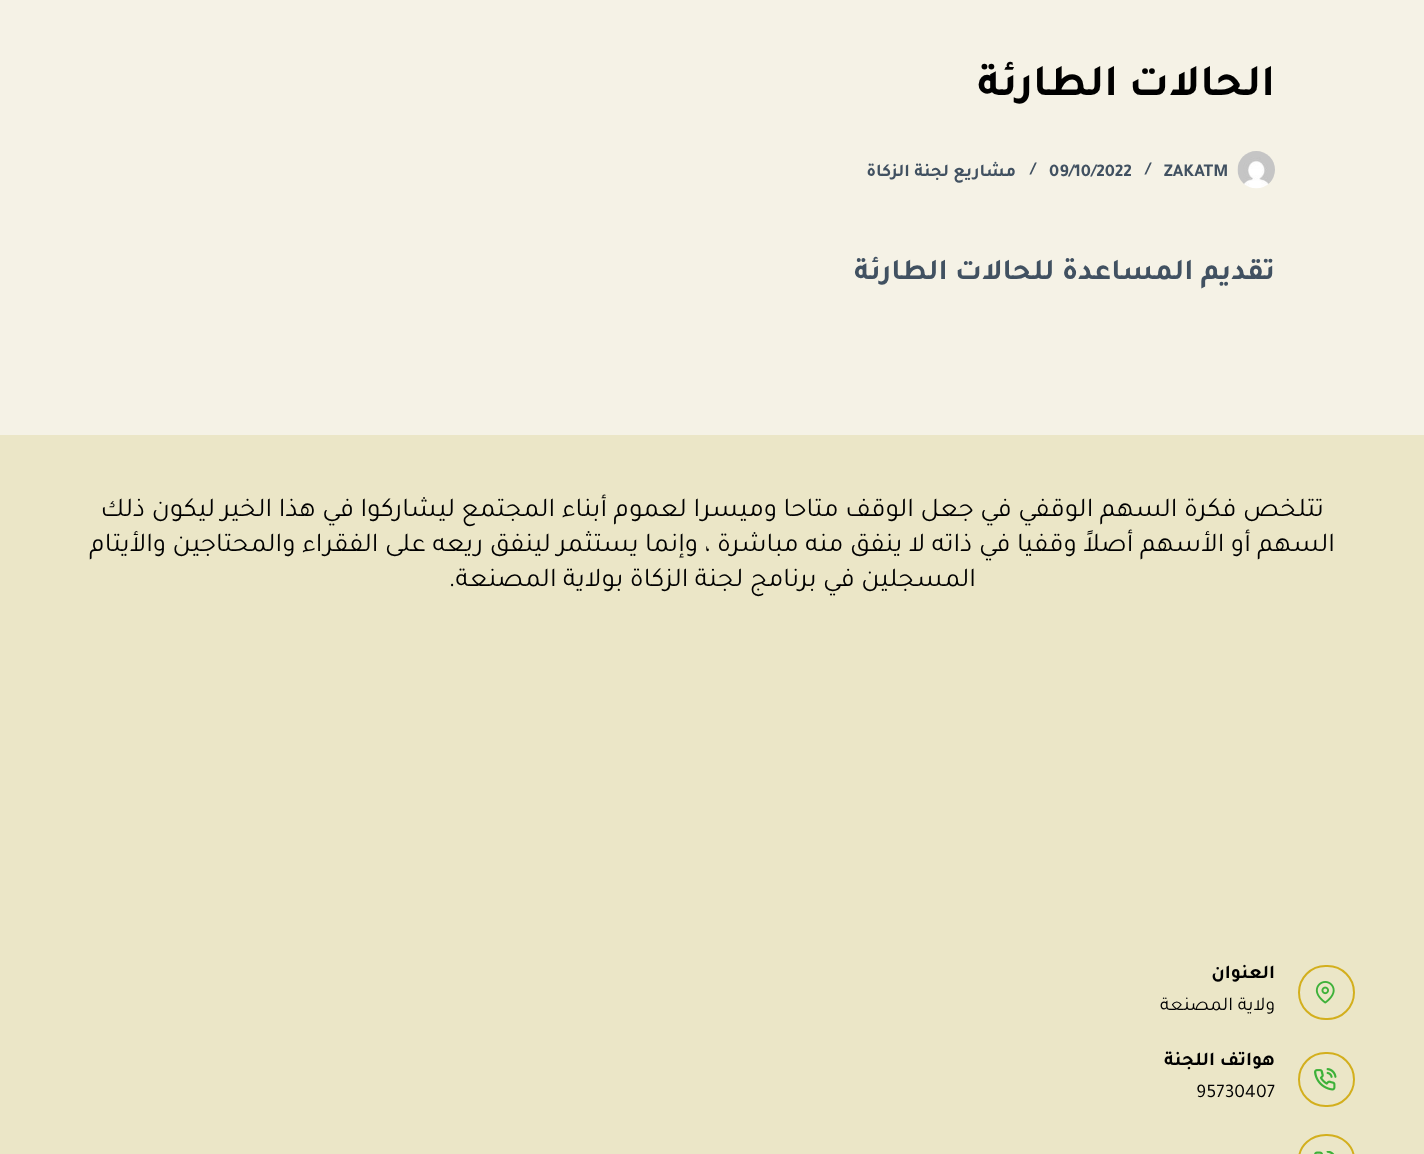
<svg xmlns="http://www.w3.org/2000/svg" width="1424" height="1154" viewBox="0 0 1424 1154">
  <style>
    .t1 { font: bold 45px Tajawal; direction: rtl; fill: #000; }
    .t2 { font: bold 18px Tajawal; fill: #415161; }
    .t3 { font: bold 18px Tajawal; direction: rtl; fill: #415161; }
    .t4 { font: bold 30px Tajawal; direction: rtl; fill: #415161; }
    .t5 { font: 27px Tajawal; direction: rtl; fill: #000; }
    .t6 { font: bold 19.5px Tajawal; direction: rtl; fill: #000; }
    .t7 { font: 19.5px Tajawal; direction: rtl; fill: #000; }
    .t8 { font: 19.5px Tajawal; fill: #000; }
  </style>
  <rect width="100%" height="100%" fill="#f5f2e6"/>
  <text x="1275" y="95" class="t1">الحالات الطارئة</text>
  <image x="1237" y="151" width="38" height="38" href="images/1.png"/>
  <text x="1164" y="176" class="t2">ZAKATM</text>
  <text x="1145" y="174" class="t2">/</text>
  <text x="1049" y="176" class="t2">09/10/2022</text>
  <text x="1030" y="174" class="t2">/</text>
  <text x="1016" y="176" class="t3">مشاريع لجنة الزكاة</text>
  <text x="1275" y="279" class="t4">تقديم المساعدة للحالات الطارئة</text>
  <rect x="0" y="435" width="1424" height="719" fill="#ebe6c7"/>
  <text x="1324" y="516" class="t5">تتلخص فكرة السهم الوقفي في جعل الوقف متاحا وميسرا لعموم أبناء المجتمع ليشاركوا في هذا الخير ليكون ذلك</text>
  <text x="1335" y="551" class="t5">السهم أو الأسهم أصلاً وقفيا في ذاته لا ينفق منه مباشرة ، وإنما يستثمر لينفق ريعه على الفقراء والمحتاجين والأيتام</text>
  <text x="976" y="586" class="t5">المسجلين في برنامج لجنة الزكاة بولاية المصنعة.</text>
  <rect x="1299" y="966" width="55" height="53" rx="26.5" fill="none" stroke="#d3af1d" stroke-width="2"/>
  <image x="1315" y="981" width="20" height="23" href="images/2.png"/>
  <text x="1275" y="978" class="t6">العنوان</text>
  <text x="1275" y="1010" class="t7">ولاية المصنعة</text>
  <rect x="1299" y="1053" width="55" height="53" rx="26.5" fill="none" stroke="#d3af1d" stroke-width="2"/>
  <image x="1314" y="1068" width="23" height="23" href="images/3.png"/>
  <text x="1275" y="1065" class="t6">هواتف اللجنة</text>
  <text x="1196" y="1097" class="t8">95730407</text>
  <rect x="1299" y="1135" width="55" height="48" rx="27" fill="none" stroke="#d3af1d" stroke-width="2"/>
  <image x="1314" y="1151" width="21" height="3" href="images/4.png"/>
</svg>
